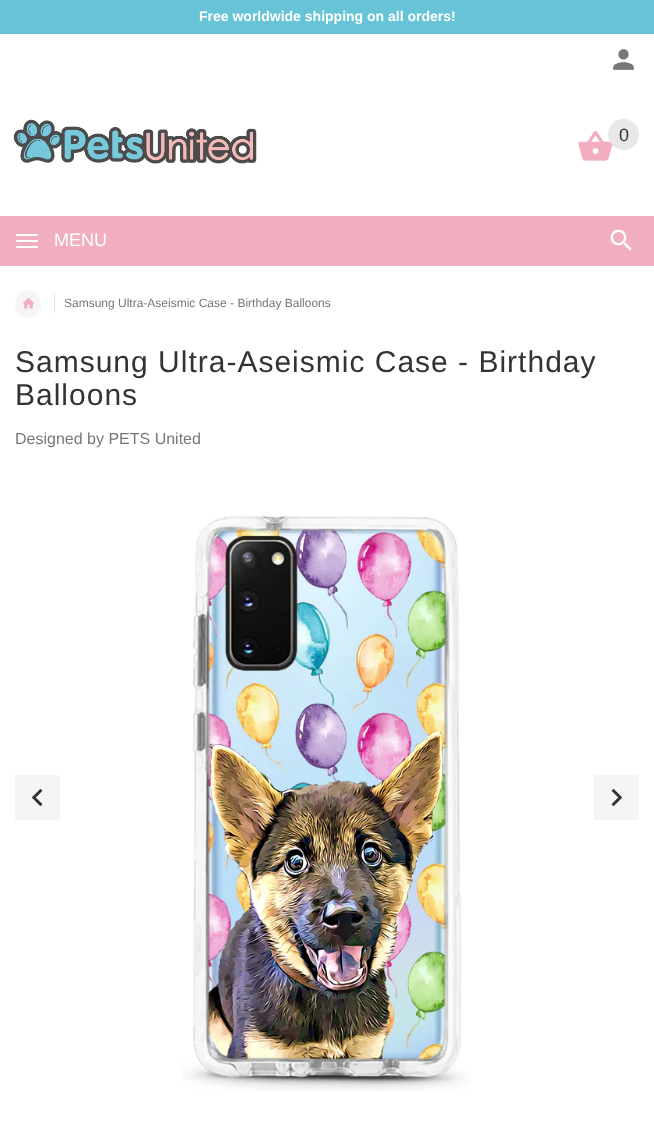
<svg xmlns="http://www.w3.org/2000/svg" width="654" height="1147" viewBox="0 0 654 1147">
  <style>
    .t1 { font: bold 14px Liberation Sans; fill: #fff; }
    .t2 { font: 18px Liberation Sans; fill: #333; }
    .t3 { font: 18px Liberation Sans; fill: #fff; }
    .t4 { font: 12px Liberation Sans; fill: #777; }
    .t5 { font: 30px Liberation Sans; letter-spacing: 1px; fill: #333; }
    .t6 { font: 16px Liberation Sans; fill: #777; }
  </style>
  <rect width="100%" height="100%" fill="#fff"/>
  <rect x="0" y="0" width="654" height="34" fill="#67c4d6"/>
  <text x="199" y="21" class="t1">Free worldwide shipping on all orders!</text>
  <image x="13" y="119" width="244" height="45" href="images/1.png"/>
  <image x="613" y="49" width="21" height="21" href="images/2.png"/>
  <image x="578" y="131" width="35" height="30" href="images/3.png"/>
  <rect x="0" y="216" width="654" height="50" fill="#f1aebf"/>
  <image x="610" y="229" width="22" height="22" href="images/4.png"/>
  <image x="578" y="131" width="35" height="30" href="images/5.png"/>
  <circle cx="623.5" cy="134.5" r="15.5" fill="#e8e8e8"/>
  <text x="619" y="141" class="t2">0</text>
  <rect x="16" y="234" width="22" height="2" rx="1" fill="#fff"/>
  <text x="54" y="246" class="t3">MENU</text>
  <rect x="16" y="240" width="22" height="2" rx="1" fill="#fff"/>
  <rect x="16" y="246" width="22" height="2" rx="1" fill="#fff"/>
  <circle cx="28" cy="304" r="13" fill="#f5f5f5"/>
  <image x="22" y="298" width="13" height="11" href="images/6.png"/>
  <rect x="54" y="294" width="1" height="19" fill="#e5e5e5"/>
  <text x="64" y="307" class="t4">Samsung Ultra-Aseismic Case - Birthday Balloons</text>
  <text x="15" y="372" class="t5">Samsung Ultra-Aseismic Case - Birthday</text>
  <text x="15" y="405" class="t5">Balloons</text>
  <text x="15" y="444" class="t6">Designed by PETS United</text>
  <rect x="15" y="775" width="45" height="45" fill="#f5f5f5"/>
  <image x="31" y="788" width="12" height="19" href="images/7.png"/>
  <image x="181" y="515" width="290" height="577" href="images/8.png"/>
  <rect x="594" y="775" width="45" height="45" fill="#f5f5f5"/>
  <image x="611" y="788" width="12" height="19" href="images/9.png"/>
</svg>
